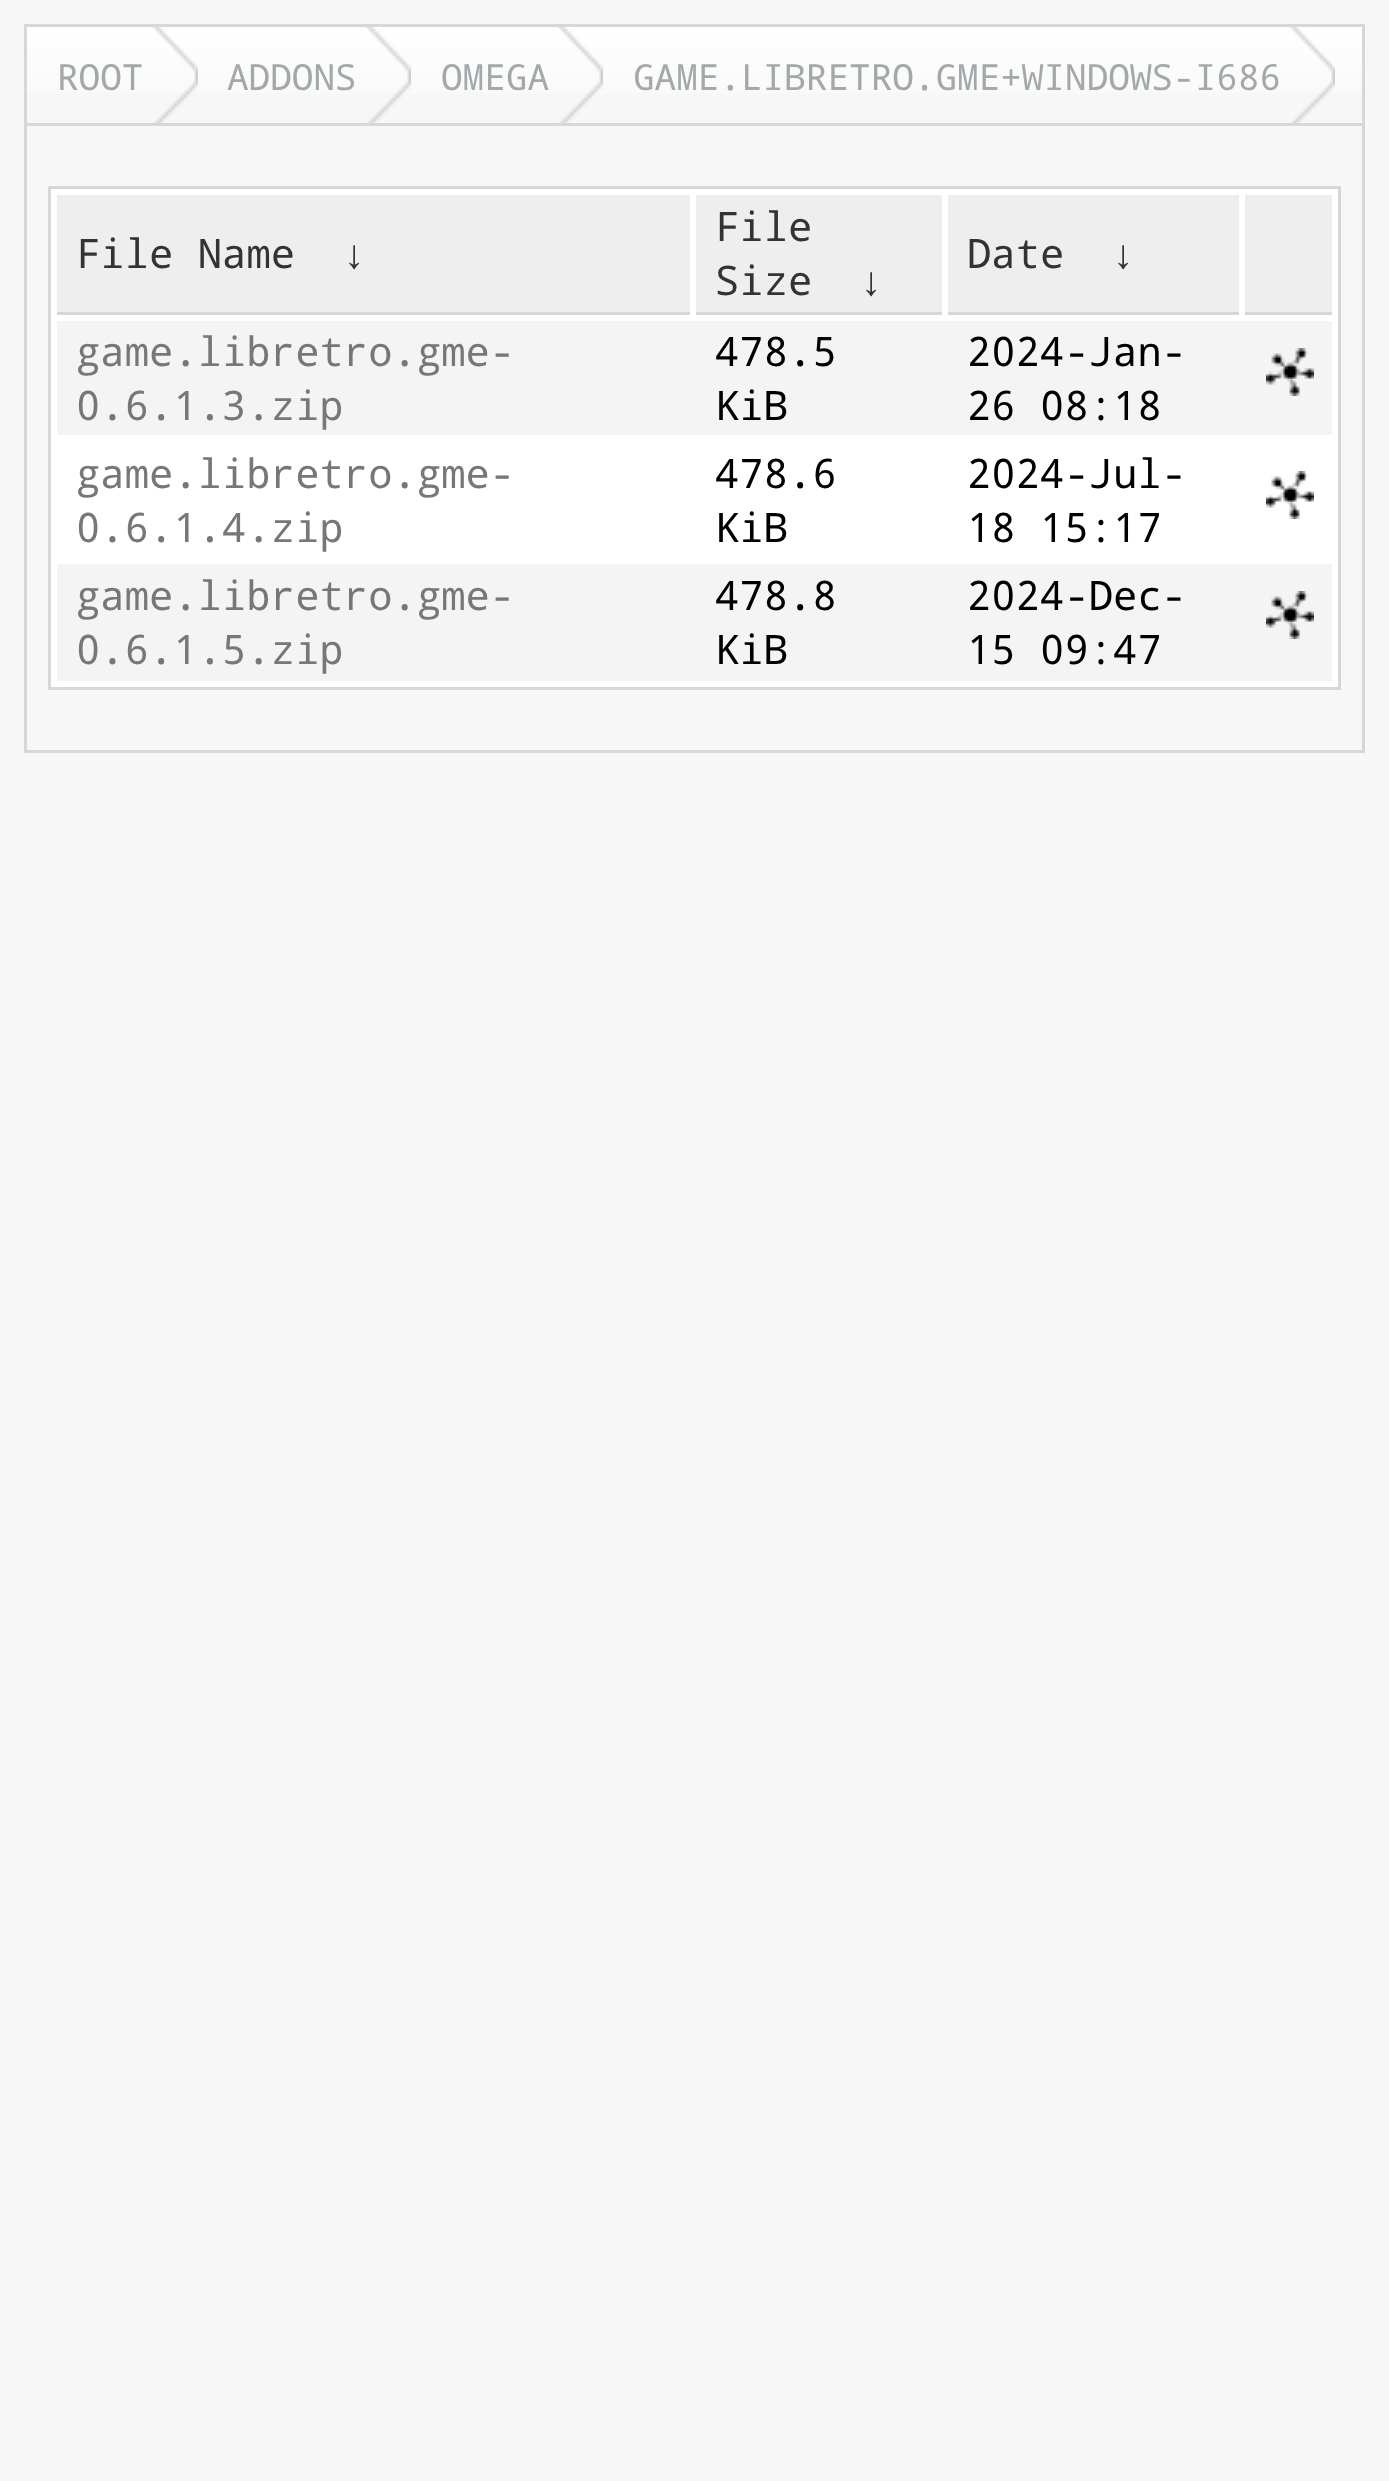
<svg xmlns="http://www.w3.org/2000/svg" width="1389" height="2481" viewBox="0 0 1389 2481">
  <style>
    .t1 { font: 36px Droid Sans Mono; fill: #a3a9ab; }
    .t2 { font: 40.6px Droid Sans Mono; fill: #333; }
    .t3 { font: 40.6px Liberation Serif; fill: #333; }
    .t4 { font: 40.6px Droid Sans Mono; fill: #777; }
    .t5 { font: 40.6px Droid Sans Mono; fill: #000; }
  </style>
  <defs>
    <linearGradient id="g1" gradientUnits="userSpaceOnUse" x1="695" y1="27" x2="695" y2="123"><stop offset="0" stop-color="#fff"/><stop offset="1" stop-color="#f7f7f7"/></linearGradient>
  </defs>
  <rect width="100%" height="100%" fill="#f7f7f7"/>
  <rect x="25.5" y="25.5" width="1338" height="726" fill="none" stroke="#d9d6d6" stroke-width="3"/>
  <rect x="27" y="27" width="1335" height="66" fill="url(#g1)"/>
  <rect x="27" y="123" width="1335" height="3" fill="#d9d6d6"/>
  <text x="57" y="90" class="t1">ROOT</text>
  <image x="152" y="27" width="46" height="96" href="images/1.png"/>
  <text x="227" y="90" class="t1">ADDONS</text>
  <image x="365" y="27" width="46" height="96" href="images/2.png"/>
  <text x="441" y="90" class="t1">OMEGA</text>
  <image x="557" y="27" width="46" height="96" href="images/1.png"/>
  <text x="633" y="90" class="t1">GAME.LIBRETRO.GME+WINDOWS-I686</text>
  <image x="1289" y="27" width="46" height="96" href="images/1.png"/>
  <rect x="49.5" y="187.5" width="1290" height="501" fill="#fff" stroke="#d9d6d6" stroke-width="3"/>
  <rect x="57" y="195" width="633" height="117" fill="#eee"/>
  <rect x="57" y="312" width="633" height="3" fill="#d9d6d6"/>
  <text x="76" y="268" class="t2">File Name</text>
  <text x="344" y="268" class="t3">↓</text>
  <rect x="696" y="195" width="246" height="117" fill="#eee"/>
  <rect x="696" y="312" width="246" height="3" fill="#d9d6d6"/>
  <text x="715" y="241" class="t2">File</text>
  <text x="715" y="295" class="t2">Size</text>
  <text x="861" y="295" class="t3">↓</text>
  <rect x="948" y="195" width="291" height="117" fill="#eee"/>
  <rect x="948" y="312" width="291" height="3" fill="#d9d6d6"/>
  <text x="967" y="268" class="t2">Date</text>
  <text x="1113" y="268" class="t3">↓</text>
  <rect x="1245" y="195" width="87" height="117" fill="#eee"/>
  <rect x="1245" y="312" width="87" height="3" fill="#d9d6d6"/>
  <rect x="57" y="321" width="1275" height="114" fill="#f4f4f4"/>
  <text x="76" y="366" class="t4">game.libretro.gme-</text>
  <text x="76" y="420" class="t4">0.6.1.3.zip</text>
  <text x="715" y="366" class="t5">478.5</text>
  <text x="715" y="420" class="t5">KiB</text>
  <text x="967" y="366" class="t5">2024-Jan-</text>
  <text x="967" y="420" class="t5">26 08:18</text>
  <image x="1266" y="348" width="48" height="48" href="images/3.png"/>
  <text x="76" y="488" class="t4">game.libretro.gme-</text>
  <text x="76" y="542" class="t4">0.6.1.4.zip</text>
  <text x="715" y="488" class="t5">478.6</text>
  <text x="715" y="542" class="t5">KiB</text>
  <text x="967" y="488" class="t5">2024-Jul-</text>
  <text x="967" y="542" class="t5">18 15:17</text>
  <image x="1266" y="471" width="48" height="48" href="images/4.png"/>
  <rect x="57" y="564" width="1275" height="117" fill="#f4f4f4"/>
  <text x="76" y="610" class="t4">game.libretro.gme-</text>
  <text x="76" y="664" class="t4">0.6.1.5.zip</text>
  <text x="715" y="610" class="t5">478.8</text>
  <text x="715" y="664" class="t5">KiB</text>
  <text x="967" y="610" class="t5">2024-Dec-</text>
  <text x="967" y="664" class="t5">15 09:47</text>
  <image x="1266" y="591" width="48" height="48" href="images/3.png"/>
</svg>
